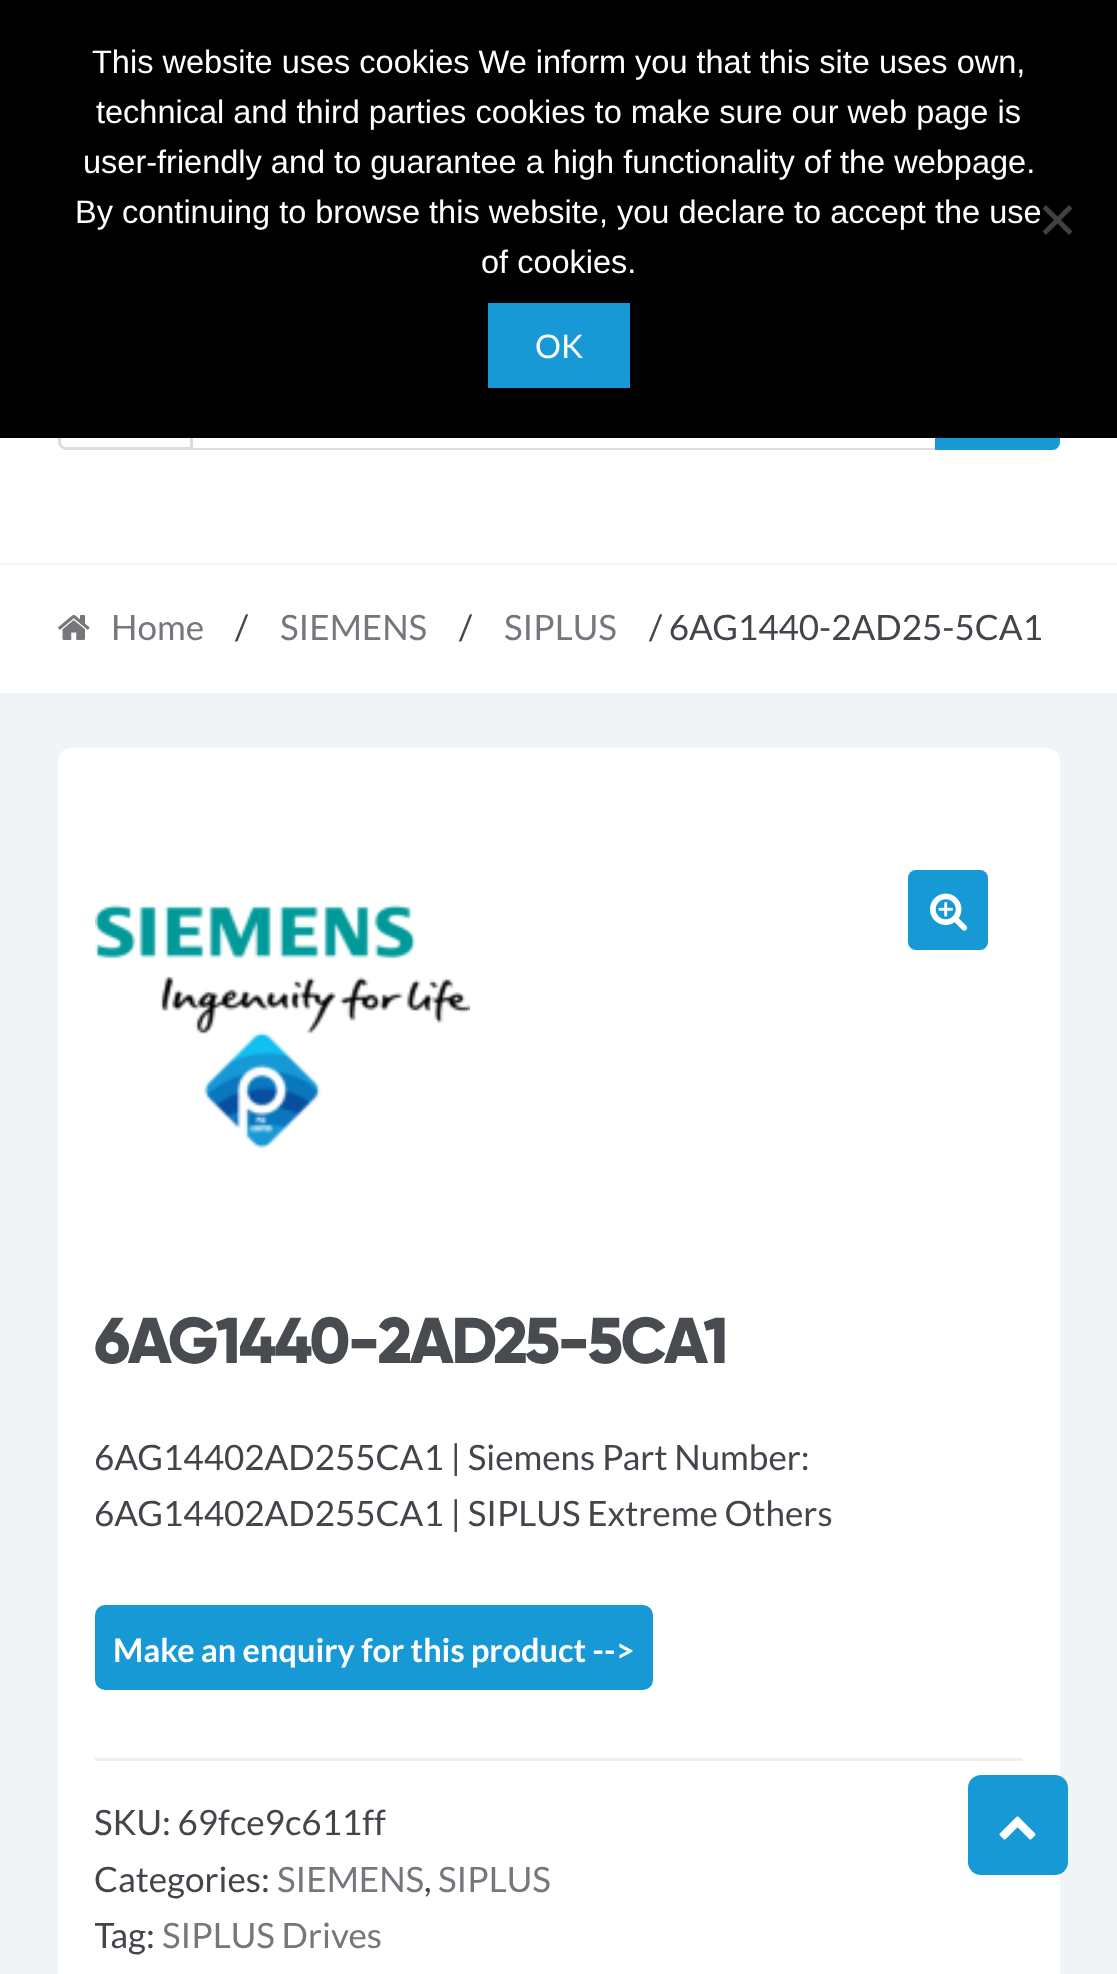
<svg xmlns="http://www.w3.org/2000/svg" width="1117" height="1974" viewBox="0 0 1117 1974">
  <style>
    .t1 { font: 32.5px Liberation Sans; fill: #fff; }
    .t2 { font: 32.5px Lato; fill: #fff; }
    .t3 { font: 35px Lato; fill: #75777d; }
    .t4 { font: 35px Lato; fill: #43454b; }
    .t5 { font: 800 64.75px Gilroy; letter-spacing: -2.5px; fill: #484c51; }
    .t6 { font: bold 32.5px Lato; fill: #fff; }
  </style>
  <defs>
    <clipPath id="clip1"><rect x="95" y="835" width="928" height="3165"/></clipPath>
  </defs>
  <rect width="100%" height="100%" fill="#fff"/>
  <path d="M66 366.5H191.5V448.5H66C62.5 448.5 59.5 445.5 59.5 442V373C59.5 369.5 62.5 366.5 66 366.5Z" fill="none" stroke="#ddd" stroke-width="3"/>
  <path d="M935 365H1052C1056.5 365 1060 368.5 1060 373V442C1060 446.5 1056.5 450 1052 450H935Z" fill="#1799d6"/>
  <rect x="0" y="0" width="1117" height="438" fill="#000"/>
  <text x="92" y="73" class="t1">This website uses cookies We inform you that this site uses own,</text>
  <text x="96" y="123" class="t1">technical and third parties cookies to make sure our web page is</text>
  <text x="83" y="173" class="t1">user-friendly and to guarantee a high functionality of the webpage.</text>
  <text x="75" y="223" class="t1">By continuing to browse this website, you declare to accept the use</text>
  <text x="481" y="273" class="t1">of cookies.</text>
  <path d="M1069 205L1072.5 208.5L1046 235L1042.5 231.5Z" fill="#404040"/>
  <path d="M1042.5 208.5L1046 205L1072.5 231.5L1069 235Z" fill="#404040"/>
  <rect x="488" y="303" width="142" height="85" fill="#1799d6"/>
  <text x="535" y="358" class="t2">OK</text>
  <rect x="0" y="563" width="1117" height="2" fill="#f5f5f5"/>
  <rect x="193" y="448" width="742" height="2" fill="#ddd"/>
  <rect x="0" y="693" width="1117" height="1281" fill="#f0f4f6"/>
  <image x="58" y="615" width="32" height="25" href="images/1.png"/>
  <text x="111" y="640" class="t3">Home</text>
  <text x="235" y="640" class="t4">/</text>
  <text x="280" y="640" class="t3">SIEMENS</text>
  <text x="459" y="640" class="t4">/</text>
  <text x="504" y="640" class="t3">SIPLUS</text>
  <text x="649" y="640" class="t4">/ 6AG1440-2AD25-5CA1</text>
  <rect x="58" y="748" width="1002" height="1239" rx="13" fill="#fff"/>
  <image x="95" y="904" width="375" height="245" href="images/2.png"/>
  <rect x="908" y="870" width="80" height="80" rx="8" fill="#1799d6"/>
  <image x="930" y="893" width="38" height="38" href="images/3.png"/>
  <text x="94" y="1363" class="t5">6AG1440-2AD25-5CA1</text>
  <text x="94" y="1470" class="t4">6AG14402AD255CA1 | Siemens Part Number:</text>
  <text x="94" y="1526" class="t4">6AG14402AD255CA1 | SIPLUS Extreme Others</text>
  <rect x="96.5" y="1606.5" width="555" height="82" rx="8.5" fill="#1799d6" stroke="#1799d6" stroke-width="3"/>
  <text x="113" y="1662" class="t6">Make an enquiry for this product --&gt;</text>
  <rect x="95" y="1758" width="928" height="3" fill="#eee"/>
  <text x="94" y="1835" class="t4">SKU: 69fce9c611ff</text>
  <text x="94" y="1892" class="t4">Categories:</text>
  <text x="277" y="1892" class="t3">SIEMENS</text>
  <text x="424" y="1892" class="t4">,</text>
  <text x="438" y="1892" class="t3">SIPLUS</text>
  <g clip-path="url(#clip1)">
    <text x="94" y="1948" class="t4">Tag:</text>
  </g>
  <text x="162" y="1948" class="t3">SIPLUS Drives</text>
  <rect x="968" y="1775" width="100" height="100" rx="13" fill="#1799d6"/>
  <image x="999" y="1816" width="37" height="24" href="images/4.png"/>
</svg>
